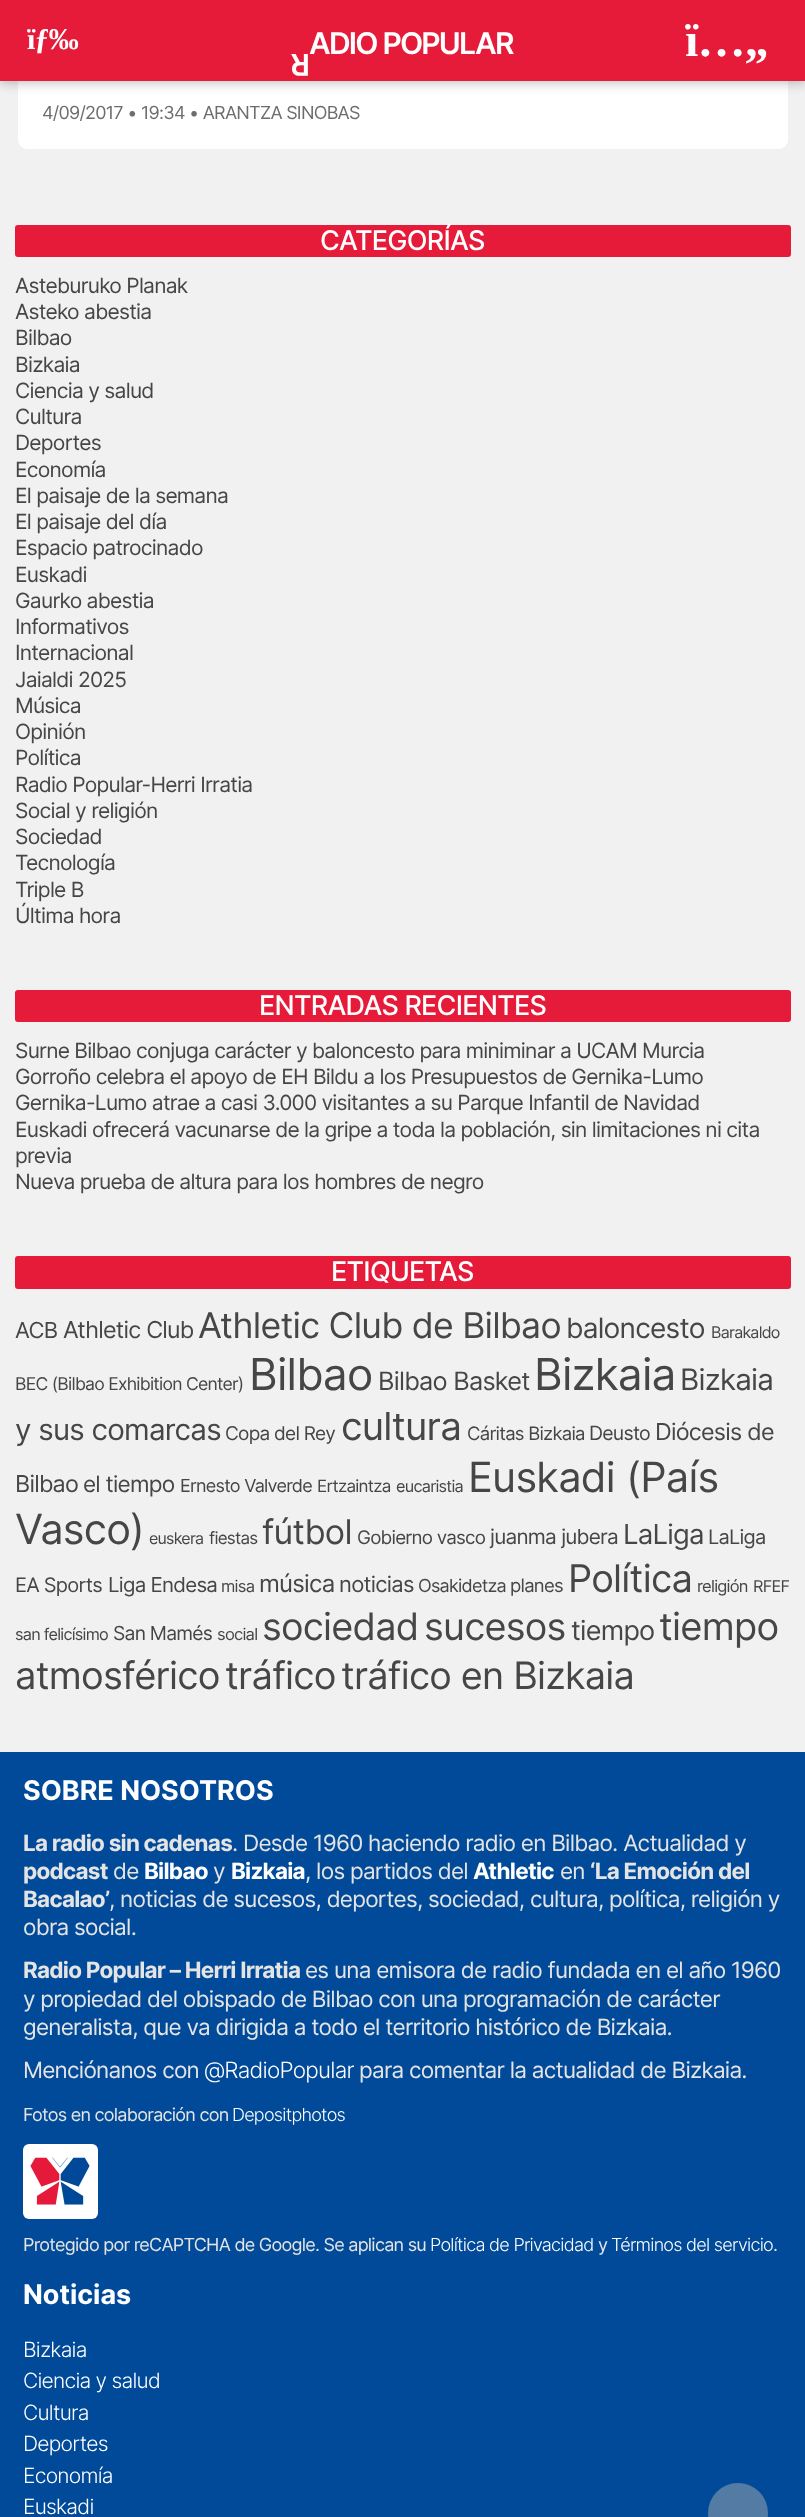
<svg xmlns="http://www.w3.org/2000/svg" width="805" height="2517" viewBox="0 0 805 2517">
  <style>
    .t1 { font: bold 30px Liberation Serif; letter-spacing: -0.75px; fill: #fff; }
    .t2 { font: 600 30px Inter; letter-spacing: -1.8px; fill: #fff; }
    .t3 { font: 600 30px Inter; letter-spacing: -2px; fill: #fff; }
    .t4 { font: bold 48px Liberation Serif; letter-spacing: -0.75px; fill: #fff; }
    .t5 { font: 18px Inter; letter-spacing: -0.75px; fill: #6d6d6d; }
    .t6 { font: 500 27px Inter; letter-spacing: -0.75px; fill: #fff; }
    .t7 { font: 21px Inter; letter-spacing: -0.75px; fill: #464646; }
    .t8 { font: 22px Inter; letter-spacing: -0.75px; fill: #464646; }
    .t9 { font: 23.25px Inter; letter-spacing: -0.75px; fill: #464646; }
    .t10 { font: 35.5px Inter; letter-spacing: -0.75px; fill: #464646; }
    .t11 { font: 28px Inter; letter-spacing: -0.75px; fill: #464646; }
    .t12 { font: 16px Inter; letter-spacing: -0.75px; fill: #464646; }
    .t13 { font: 17.6px Inter; letter-spacing: -0.75px; fill: #464646; }
    .t14 { font: 44px Inter; letter-spacing: -0.75px; fill: #464646; }
    .t15 { font: 25.25px Inter; letter-spacing: -0.75px; fill: #464646; }
    .t16 { font: 29.5px Inter; letter-spacing: -0.75px; fill: #464646; }
    .t17 { font: 19px Inter; letter-spacing: -0.75px; fill: #464646; }
    .t18 { font: 38.5px Inter; letter-spacing: -0.75px; fill: #464646; }
    .t19 { font: 18.5px Inter; letter-spacing: -0.75px; fill: #464646; }
    .t20 { font: 19.5px Inter; letter-spacing: -0.75px; fill: #464646; }
    .t21 { font: 22.5px Inter; letter-spacing: -0.75px; fill: #464646; }
    .t22 { font: 18px Inter; letter-spacing: -0.75px; fill: #464646; }
    .t23 { font: 17px Inter; letter-spacing: -0.75px; fill: #464646; }
    .t24 { font: 16.25px Inter; letter-spacing: -0.75px; fill: #464646; }
    .t25 { font: 41.5px Inter; letter-spacing: -0.75px; fill: #464646; }
    .t26 { font: 34px Inter; letter-spacing: -0.75px; fill: #464646; }
    .t27 { font: 18.75px Inter; letter-spacing: -0.75px; fill: #464646; }
    .t28 { font: 20.75px Inter; letter-spacing: -0.75px; fill: #464646; }
    .t29 { font: 27.5px Inter; letter-spacing: -0.75px; fill: #464646; }
    .t30 { font: 20px Inter; letter-spacing: -0.75px; fill: #464646; }
    .t31 { font: 20.5px Inter; letter-spacing: -0.75px; fill: #464646; }
    .t32 { font: 16.5px Inter; letter-spacing: -0.75px; fill: #464646; }
    .t33 { font: 24px Inter; letter-spacing: -0.75px; fill: #464646; }
    .t34 { font: 38px Inter; letter-spacing: -0.75px; fill: #464646; }
    .t35 { font: 19.25px Inter; letter-spacing: -0.75px; fill: #464646; }
    .t36 { font: 37.75px Inter; letter-spacing: -0.75px; fill: #464646; }
    .t37 { font: 27px Inter; letter-spacing: -0.75px; fill: #464646; }
    .t38 { font: bold 27px Inter; fill: #fff; }
    .t39 { font: bold 22.5px Inter; letter-spacing: -0.75px; fill: #e4e4e4; }
    .t40 { font: 22.5px Inter; letter-spacing: -0.75px; fill: #e4e4e4; }
    .t41 { font: bold 22.5px Inter; letter-spacing: -0.75px; fill: #fff; }
    .t42 { font: 300 22.5px Inter; letter-spacing: -0.75px; fill: #fff; }
    .t43 { font: 18px Inter; letter-spacing: -0.75px; fill: #e4e4e4; }
    .t44 { font: 300 18px Inter; letter-spacing: -0.75px; fill: #fff; }
    .t45 { font: 300 21px Inter; letter-spacing: -0.75px; fill: #fff; }
  </style>
  <rect width="100%" height="100%" fill="#f1f1f1"/>
  <rect x="18" y="-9" width="770" height="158" rx="9" fill="#fff"/>
  <rect x="0" y="0" width="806" height="83" fill="#00000040" filter="blur(6px)"/>
  <rect x="0" y="0" width="805" height="81" fill="#e61a39"/>
  <text x="27" y="49" class="t1">ïƒ‰</text>
  <text x="309" y="54" class="t2">ADIO POPULAR</text>
  <text x="310" y="54" transform="rotate(180 310 54)" class="t3">R</text>
  <text x="685" y="56" class="t4">ï…„</text>
  <text x="42" y="119" class="t5">4/09/2017 • 19:34 • ARANTZA SINOBAS</text>
  <rect x="15" y="225" width="776" height="32" rx="3" fill="#e61a39"/>
  <text x="320" y="250" class="t6">CATEGORÍAS</text>
  <text x="15" y="293" class="t7">Asteburuko Planak</text>
  <text x="15" y="319" class="t7">Asteko abestia</text>
  <text x="15" y="345" class="t7">Bilbao</text>
  <text x="15" y="372" class="t7">Bizkaia</text>
  <text x="15" y="398" class="t7">Ciencia y salud</text>
  <text x="15" y="424" class="t7">Cultura</text>
  <text x="15" y="450" class="t7">Deportes</text>
  <text x="15" y="477" class="t7">Economía</text>
  <text x="15" y="503" class="t7">El paisaje de la semana</text>
  <text x="15" y="529" class="t7">El paisaje del día</text>
  <text x="15" y="555" class="t7">Espacio patrocinado</text>
  <text x="15" y="582" class="t7">Euskadi</text>
  <text x="15" y="608" class="t7">Gaurko abestia</text>
  <text x="15" y="634" class="t7">Informativos</text>
  <text x="15" y="660" class="t7">Internacional</text>
  <text x="15" y="687" class="t7">Jaialdi 2025</text>
  <text x="15" y="713" class="t7">Música</text>
  <text x="15" y="739" class="t7">Opinión</text>
  <text x="15" y="765" class="t7">Política</text>
  <text x="15" y="792" class="t7">Radio Popular-Herri Irratia</text>
  <text x="15" y="818" class="t7">Social y religión</text>
  <text x="15" y="844" class="t7">Sociedad</text>
  <text x="15" y="870" class="t7">Tecnología</text>
  <text x="15" y="897" class="t7">Triple B</text>
  <text x="15" y="923" class="t7">Última hora</text>
  <rect x="15" y="990" width="776" height="32" rx="3" fill="#e61a39"/>
  <text x="259" y="1015" class="t6">ENTRADAS RECIENTES</text>
  <text x="15" y="1058" class="t7">Surne Bilbao conjuga carácter y baloncesto para miniminar a UCAM Murcia</text>
  <text x="15" y="1084" class="t7">Gorroño celebra el apoyo de EH Bildu a los Presupuestos de Gernika-Lumo</text>
  <text x="15" y="1110" class="t7">Gernika-Lumo atrae a casi 3.000 visitantes a su Parque Infantil de Navidad</text>
  <text x="15" y="1137" class="t7">Euskadi ofrecerá vacunarse de la gripe a toda la población, sin limitaciones ni cita</text>
  <text x="15" y="1163" class="t7">previa</text>
  <text x="15" y="1189" class="t7">Nueva prueba de altura para los hombres de negro</text>
  <rect x="15" y="1256" width="776" height="33" rx="3" fill="#e61a39"/>
  <text x="331" y="1281" class="t6">ETIQUETAS</text>
  <text x="15" y="1338" class="t8">ACB</text>
  <text x="63" y="1338" class="t9">Athletic Club</text>
  <text x="198" y="1338" class="t10">Athletic Club de Bilbao</text>
  <text x="566" y="1338" class="t11">baloncesto</text>
  <text x="711" y="1338" class="t12">Barakaldo</text>
  <text x="15" y="1390" class="t13">BEC (Bilbao Exhibition Center)</text>
  <text x="249" y="1390" class="t14">Bilbao</text>
  <text x="378" y="1390" class="t15">Bilbao Basket</text>
  <text x="534" y="1390" class="t14">Bizkaia</text>
  <text x="680" y="1390" class="t16">Bizkaia</text>
  <text x="15" y="1440" class="t16">y sus comarcas</text>
  <text x="225" y="1440" class="t17">Copa del Rey</text>
  <text x="341" y="1440" class="t18">cultura</text>
  <text x="467" y="1440" class="t19">Cáritas Bizkaia</text>
  <text x="589" y="1440" class="t20">Deusto</text>
  <text x="655" y="1440" class="t9">Diócesis de</text>
  <text x="15" y="1492" class="t9">Bilbao</text>
  <text x="83" y="1492" class="t21">el tiempo</text>
  <text x="180" y="1492" class="t22">Ernesto Valverde</text>
  <text x="317" y="1492" class="t23">Ertzaintza</text>
  <text x="396" y="1492" class="t24">eucaristia</text>
  <text x="468" y="1492" class="t25">Euskadi (País</text>
  <text x="15" y="1544" class="t25">Vasco)</text>
  <text x="149" y="1544" class="t12">euskera</text>
  <text x="209" y="1544" class="t23">fiestas</text>
  <text x="262" y="1544" class="t26">fútbol</text>
  <text x="357" y="1544" class="t27">Gobierno vasco</text>
  <text x="490" y="1544" class="t28">juanma jubera</text>
  <text x="623" y="1544" class="t29">LaLiga</text>
  <text x="708" y="1544" class="t30">LaLiga</text>
  <text x="15" y="1592" class="t30">EA Sports</text>
  <text x="108" y="1592" class="t31">Liga Endesa</text>
  <text x="221" y="1592" class="t32">misa</text>
  <text x="259" y="1592" class="t33">música</text>
  <text x="339" y="1592" class="t8">noticias</text>
  <text x="418" y="1592" class="t22">Osakidetza</text>
  <text x="510" y="1592" class="t19">planes</text>
  <text x="568" y="1592" class="t34">Política</text>
  <text x="697" y="1592" class="t32">religión</text>
  <text x="753" y="1592" class="t24">RFEF</text>
  <text x="15" y="1640" class="t24">san felicísimo</text>
  <text x="113" y="1640" class="t35">San Mamés</text>
  <text x="217" y="1640" class="t32">social</text>
  <text x="262" y="1640" class="t36">sociedad</text>
  <text x="424" y="1640" class="t36">sucesos</text>
  <text x="571" y="1640" class="t37">tiempo</text>
  <text x="659" y="1640" class="t34">tiempo</text>
  <text x="15" y="1689" class="t34">atmosférico</text>
  <text x="225" y="1689" class="t34">tráfico</text>
  <text x="341" y="1689" class="t36">tráfico en Bizkaia</text>
  <rect x="0" y="1752" width="805" height="765" fill="#004a99"/>
  <text x="23" y="1800" class="t38">SOBRE NOSOTROS</text>
  <text x="23" y="1851" class="t39">La radio sin cadenas</text>
  <text x="232" y="1851" class="t40">. Desde 1960 haciendo radio en Bilbao. Actualidad y</text>
  <text x="23" y="1879" class="t39">podcast</text>
  <text x="113" y="1879" class="t40">de</text>
  <text x="144" y="1879" class="t41">Bilbao</text>
  <text x="213" y="1879" class="t40">y</text>
  <text x="231" y="1879" class="t41">Bizkaia</text>
  <text x="305" y="1879" class="t40">, los partidos del</text>
  <text x="473" y="1879" class="t41">Athletic</text>
  <text x="560" y="1879" class="t40">en</text>
  <text x="590" y="1879" class="t39">‘La Emoción del</text>
  <text x="23" y="1907" class="t39">Bacalao’</text>
  <text x="109" y="1907" class="t40">, noticias de sucesos, deportes, sociedad, cultura, política, religión y</text>
  <text x="23" y="1935" class="t40">obra social.</text>
  <text x="23" y="1978" class="t39">Radio Popular – Herri Irratia</text>
  <text x="305" y="1978" class="t40">es una emisora de radio fundada en el año 1960</text>
  <text x="23" y="2007" class="t40">y propiedad del obispado de Bilbao con una programación de carácter</text>
  <text x="23" y="2035" class="t40">generalista, que va dirigida a todo el territorio histórico de Bizkaia.</text>
  <text x="23" y="2078" class="t40">Menciónanos con</text>
  <text x="204" y="2078" class="t42">@RadioPopular</text>
  <text x="359" y="2078" class="t40">para comentar la actualidad de Bizkaia.</text>
  <text x="23" y="2121" class="t43">Fotos en colaboración con</text>
  <text x="232" y="2121" class="t44">Depositphotos</text>
  <rect x="23" y="2144" width="75" height="75" rx="6" fill="#fff"/>
  <image x="30" y="2157" width="60" height="48" href="images/1.png"/>
  <text x="23" y="2251" class="t43">Protegido por reCAPTCHA de Google. Se aplican su</text>
  <text x="430" y="2251" class="t44">Política de Privacidad</text>
  <text x="598" y="2251" class="t43">y</text>
  <text x="611" y="2251" class="t44">Términos del servicio</text>
  <text x="773" y="2251" class="t43">.</text>
  <text x="23" y="2304" class="t38">Noticias</text>
  <text x="23" y="2357" class="t45">Bizkaia</text>
  <text x="23" y="2388" class="t45">Ciencia y salud</text>
  <text x="23" y="2420" class="t45">Cultura</text>
  <text x="23" y="2451" class="t45">Deportes</text>
  <text x="23" y="2483" class="t45">Economía</text>
  <text x="23" y="2514" class="t45">Euskadi</text>
  <circle cx="738" cy="2513" r="30" fill="#547ba4"/>
</svg>
